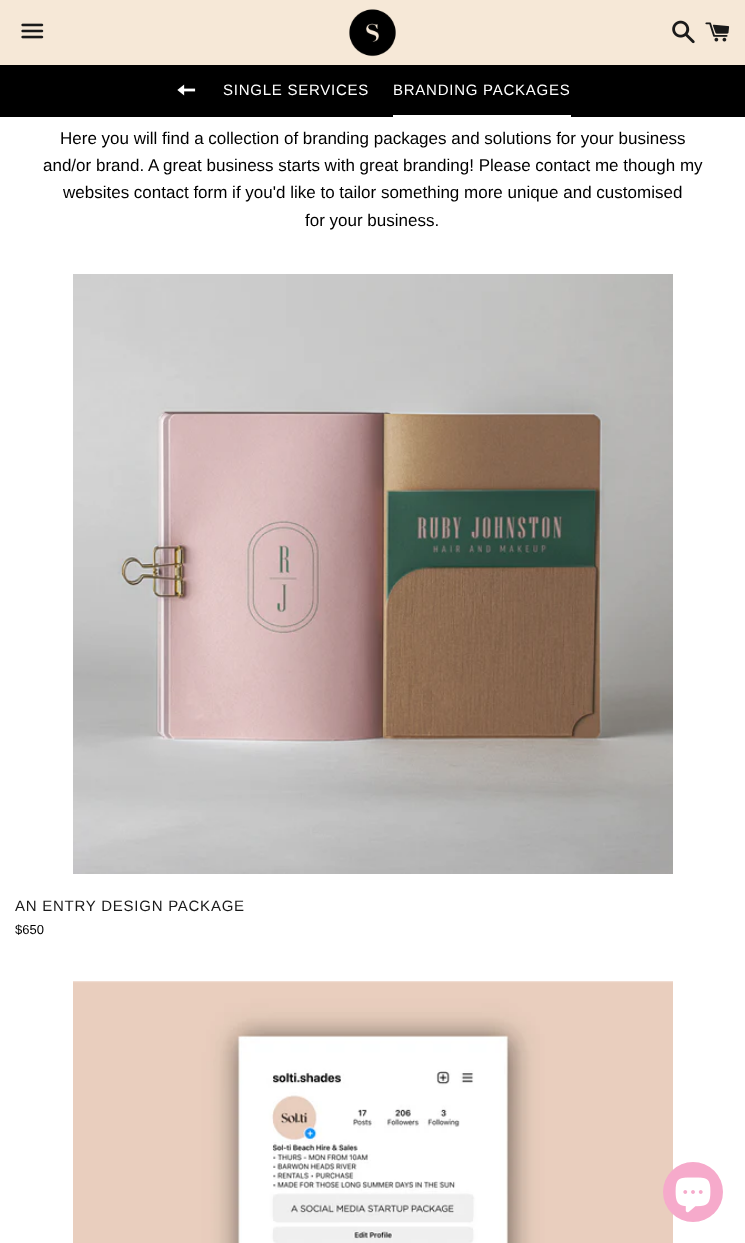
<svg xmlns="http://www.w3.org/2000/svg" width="745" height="1243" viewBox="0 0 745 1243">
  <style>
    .t1 { font: 15px Liberation Sans; letter-spacing: 0.75px; fill: #fff; }
    .t2 { font: 17px Liberation Sans; fill: #000; }
    .t3 { font: 15px Liberation Sans; letter-spacing: 0.75px; fill: #1a1a1a; }
    .t4 { font: 13px Liberation Sans; fill: #000; }
  </style>
  <rect width="100%" height="100%" fill="#fff"/>
  <rect x="0" y="0" width="745" height="65" fill="#f6e8d7"/>
  <image x="21" y="23" width="23" height="16" href="images/1.png"/>
  <image x="349" y="9" width="47" height="48" href="images/2.png"/>
  <image x="672" y="20" width="23" height="24" href="images/3.png"/>
  <image x="705" y="22" width="25" height="20" href="images/4.png"/>
  <rect x="0" y="65" width="745" height="52" fill="#000"/>
  <image x="177" y="84" width="19" height="12" href="images/5.png"/>
  <text x="223" y="95" class="t1">SINGLE SERVICES</text>
  <text x="393" y="95" class="t1">BRANDING PACKAGES</text>
  <rect x="393" y="115" width="178" height="2" fill="#fff"/>
  <text x="60" y="144" class="t2">Here you will find a collection of branding packages and solutions for your business</text>
  <text x="43" y="171" class="t2">and/or brand. A great business starts with great branding! Please contact me though my</text>
  <text x="63" y="198" class="t2">websites contact form if you'd like to tailor something more unique and customised</text>
  <text x="305" y="226" class="t2">for your business.</text>
  <image x="73" y="274" width="600" height="600" href="images/6.png"/>
  <text x="15" y="911" class="t3">AN ENTRY DESIGN PACKAGE</text>
  <text x="15" y="934" class="t4">$650</text>
  <image x="73" y="981" width="600" height="262" href="images/7.png"/>
  <circle cx="693" cy="1192" r="30" fill="#f6aacb"/>
  <image x="675" y="1177" width="36" height="36" href="images/8.png"/>
</svg>
